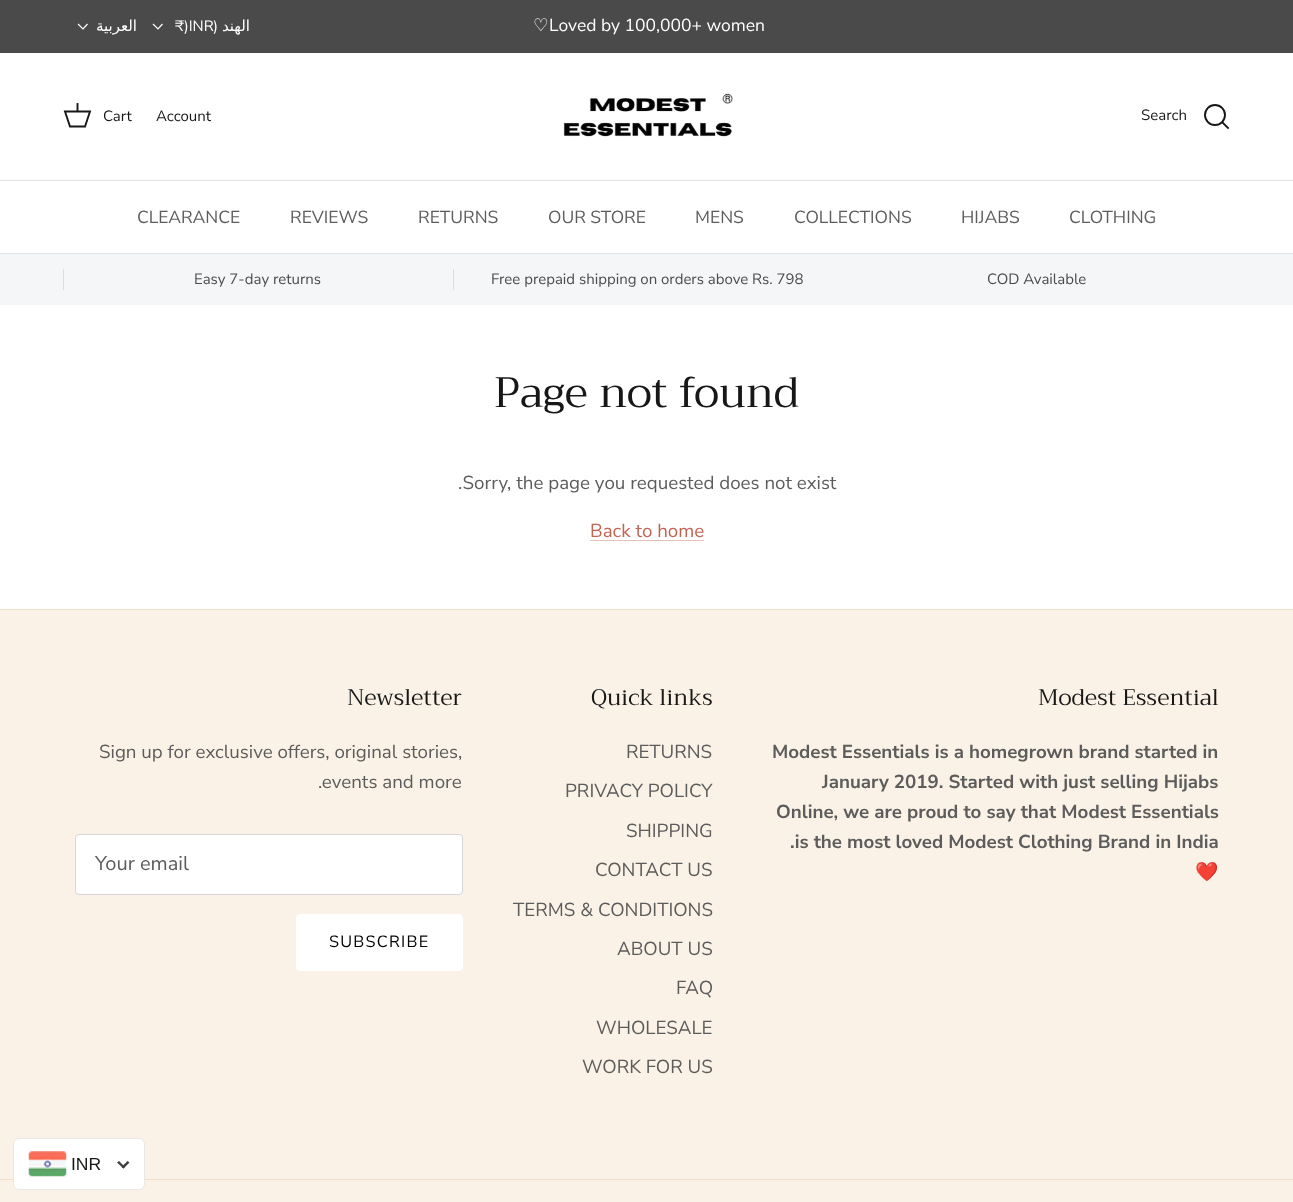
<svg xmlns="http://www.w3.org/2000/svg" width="1293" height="1202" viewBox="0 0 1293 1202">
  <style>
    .t1 { font: 15px DejaVu Sans; direction: rtl; fill: #fff; }
    .t2 { font: 15px Nunito Sans; fill: #fff; }
    .t3 { font: 15px Nunito Sans; direction: rtl; fill: #fff; }
    .t4 { font: 17.5px DejaVu Sans; fill: #fff; }
    .t5 { font: 17.5px Nunito Sans; fill: #fff; }
    .t6 { font: 15px Nunito Sans; fill: #171717; }
    .t7 { font: 17.5px Nunito Sans; fill: #5c5c5c; }
    .t8 { font: 15px Nunito Sans; fill: #4c4c4b; }
    .t9 { font: 42.5px Trirong; fill: #171717; }
    .t10 { font: 18.75px Nunito Sans; fill: #5c5c5c; }
    .t11 { font: 18.75px Nunito Sans; fill: #c16452; }
    .t12 { font: 22.5px Trirong; fill: #171717; }
    .t13 { font: 20px Nunito Sans; fill: #5c5c5c; }
    .t14 { font: 16.25px Nunito Sans; letter-spacing: 1.25px; fill: #000; }
    .t15 { font: bold 18.75px Nunito Sans; fill: #5c5c5c; }
    .t16 { font: bold 18.75px Noto Color Emoji; fill: #5c5c5c; }
    .t17 { font: 17.5px Liberation Sans; fill: #171717; }
  </style>
  <rect width="100%" height="100%" fill="#fff"/>
  <rect x="0" y="0" width="1293" height="53" fill="#4a4a4a"/>
  <path d="M87.5 24L83 29L78 24" fill="none" stroke="#fff" stroke-width="1.2"/>
  <text x="137" y="31" class="t1">العربية</text>
  <path d="M162.5 24L158 29L153 24" fill="none" stroke="#fff" stroke-width="1.2"/>
  <text x="175" y="31" class="t2">₹)INR</text>
  <text x="218" y="31" class="t3">(</text>
  <text x="250" y="31" class="t1">الهند</text>
  <text x="533" y="31" class="t4">♡</text>
  <text x="549" y="31" class="t5">Loved by 100,000+ women</text>
  <rect x="0" y="180" width="1293" height="1" fill="#dfe3e8"/>
  <path d="M65 111.5H90L85 126.5H70Z" fill="none" stroke="#171717" stroke-width="1.9"/>
  <path d="M77.5 111V104" fill="none" stroke="#171717" stroke-width="1.9" stroke-linecap="square"/>
  <text x="103" y="121" class="t6">Cart</text>
  <text x="156" y="121" class="t6">Account</text>
  <image x="563" y="93" width="170" height="44" href="images/1.png"/>
  <text x="1141" y="120" class="t6">Search</text>
  <circle cx="1215" cy="115" r="10" fill="none" stroke="#171717" stroke-width="1.9"/>
  <path d="M1222.5 122.5L1228 128" fill="none" stroke="#171717" stroke-width="1.9" stroke-linecap="square"/>
  <rect x="0" y="253" width="1293" height="1" fill="#dfe3e8"/>
  <text x="137" y="223" class="t7">CLEARANCE</text>
  <text x="290" y="223" class="t7">REVIEWS</text>
  <text x="418" y="223" class="t7">RETURNS</text>
  <text x="548" y="223" class="t7">OUR STORE</text>
  <text x="695" y="223" class="t7">MENS</text>
  <text x="794" y="223" class="t7">COLLECTIONS</text>
  <text x="961" y="223" class="t7">HIJABS</text>
  <text x="1069" y="223" class="t7">CLOTHING</text>
  <rect x="0" y="254" width="1293" height="51" fill="#f4f6f8"/>
  <rect x="63" y="269" width="1" height="21" fill="#dbddde"/>
  <text x="194" y="284" class="t8">Easy 7-day returns</text>
  <rect x="453" y="269" width="1" height="21" fill="#dbddde"/>
  <text x="491" y="284" class="t8">Free prepaid shipping on orders above Rs. 798</text>
  <text x="987" y="284" class="t8">COD Available</text>
  <text x="494" y="407" class="t9">Page not found</text>
  <text x="458" y="489" class="t10">.Sorry, the page you requested does not exist</text>
  <text x="590" y="537" class="t11">Back to home</text>
  <rect x="590" y="540" width="114" height="1" fill="#e6c1ba"/>
  <rect x="0" y="610" width="1293" height="592" fill="#faf2e6"/>
  <rect x="0" y="609" width="1293" height="1" fill="#efdfc7"/>
  <text x="347" y="705" class="t12">Newsletter</text>
  <text x="99" y="758" class="t10">Sign up for exclusive offers, original stories,</text>
  <text x="318" y="788" class="t10">.events and more</text>
  <rect x="75.5" y="834.5" width="387" height="60" rx="3.5" fill="#fff" stroke="#d6d6d6"/>
  <text x="95" y="870" class="t13">Your email</text>
  <rect x="296.5" y="914.5" width="166" height="56" rx="3.5" fill="#fff" stroke="#fff"/>
  <text x="329" y="947" class="t14">SUBSCRIBE</text>
  <text x="591" y="705" class="t12">Quick links</text>
  <text x="626" y="758" class="t10">RETURNS</text>
  <text x="565" y="797" class="t10">PRIVACY POLICY</text>
  <text x="626" y="837" class="t10">SHIPPING</text>
  <text x="595" y="876" class="t10">CONTACT US</text>
  <text x="513" y="916" class="t10">TERMS &amp; CONDITIONS</text>
  <text x="617" y="955" class="t10">ABOUT US</text>
  <text x="676" y="994" class="t10">FAQ</text>
  <text x="596" y="1034" class="t10">WHOLESALE</text>
  <text x="582" y="1073" class="t10">WORK FOR US</text>
  <text x="1038" y="705" class="t12">Modest Essential</text>
  <text x="772" y="758" class="t15">Modest Essentials is a homegrown brand started in</text>
  <text x="822" y="788" class="t15">January 2019. Started with just selling Hijabs</text>
  <text x="776" y="818" class="t15">Online, we are proud to say that Modest Essentials</text>
  <text x="790" y="848" class="t15">.is the most loved Modest Clothing Brand in India</text>
  <text x="1195" y="878" class="t16">❤️</text>
  <rect x="0" y="1179" width="1293" height="1" fill="#efdfc7"/>
  <rect x="13.5" y="1138.5" width="131" height="51" rx="5.5" fill="#fff" stroke="#e8e8e8"/>
  <image x="28" y="1151" width="39" height="26" href="images/2.png"/>
  <text x="71" y="1170" class="t17">INR</text>
  <path d="M127.5 1161L129.5 1162.5L123.5 1168.5L121.5 1167Z" fill="#403f3f"/>
  <path d="M119 1161L125 1167L123.5 1168.5L117 1162.5Z" fill="#403f3f"/>
</svg>
